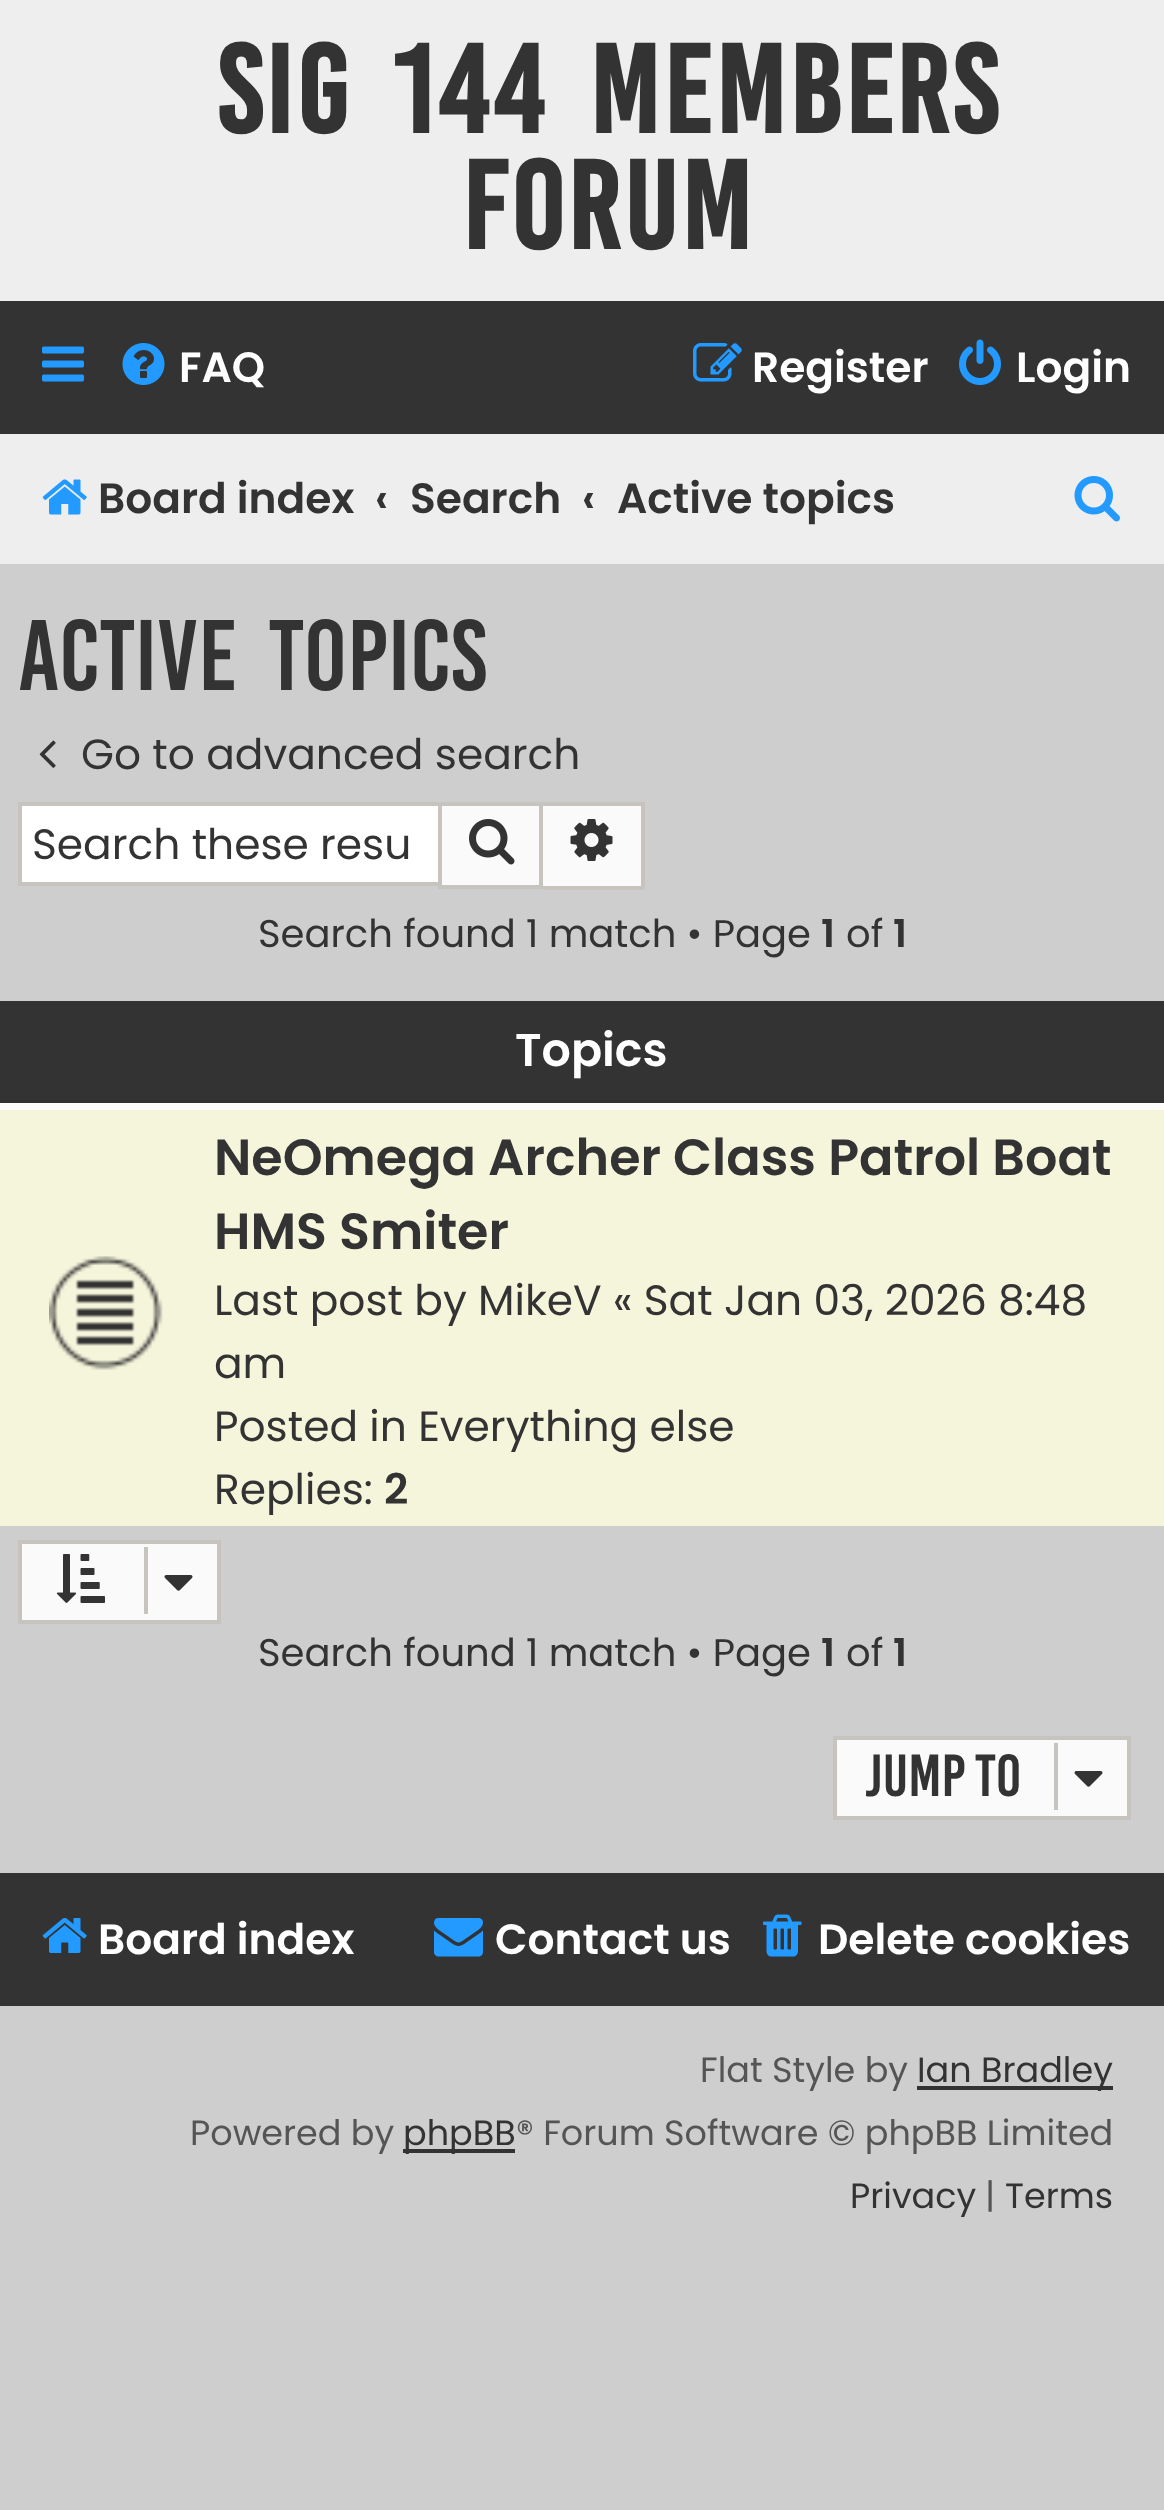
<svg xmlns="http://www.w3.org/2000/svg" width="1164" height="2510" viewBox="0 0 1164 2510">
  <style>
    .t1 { font: bold 96.25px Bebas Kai; letter-spacing: 3.5px; fill: #333; }
    .t2 { font: 600 42.35px Poppins; fill: #fff; }
    .t3 { font: 600 42.35px Poppins; fill: #333; }
    .t4 { font: 77px Bebas Kai; fill: #333; }
    .t5 { font: 42.35px Poppins; fill: #333; }
    .t6 { font: 38.5px Poppins; fill: #333; }
    .t7 { font: 600 38.5px Poppins; fill: #333; }
    .t8 { font: 600 46px Poppins; fill: #fff; }
    .t9 { font: 600 50.8px Poppins; fill: #333; }
    .t10 { font: 45.5px Bebas Kai; fill: #333; }
    .t11 { font: 35px Poppins; fill: #555; }
    .t12 { font: 35px Poppins; fill: #333; }
  </style>
  <rect width="100%" height="100%" fill="#cecece"/>
  <rect x="0" y="0" width="1164" height="301" fill="#eee"/>
  <text x="217" y="133" word-spacing="14" class="t1">SIG 144 Members</text>
  <text x="462" y="249" class="t1">forum</text>
  <rect x="0" y="301" width="1164" height="133" fill="#333"/>
  <image x="42" y="346" width="42" height="36" href="images/1.png"/>
  <image x="122" y="343" width="43" height="42" href="images/2.png"/>
  <text x="179" y="382" class="t2">FAQ</text>
  <image x="693" y="343" width="49" height="39" href="images/3.png"/>
  <text x="752" y="382" class="t2">Register</text>
  <image x="959" y="339" width="42" height="46" href="images/4.png"/>
  <text x="1016" y="382" class="t2">Login</text>
  <rect x="0" y="434" width="1164" height="130" fill="#eee"/>
  <image x="42" y="479" width="45" height="36" href="images/5.png"/>
  <text x="98" y="513" class="t3">Board index</text>
  <text x="375" y="513" class="t3">‹</text>
  <text x="410" y="513" class="t3">Search</text>
  <text x="582" y="513" class="t3">‹</text>
  <text x="617" y="513" class="t3">Active topics</text>
  <image x="1074" y="476" width="46" height="46" href="images/6.png"/>
  <text x="18" y="690" word-spacing="14" class="t4">Active topics</text>
  <image x="39" y="740" width="17" height="28" href="images/7.png"/>
  <text x="81" y="769" class="t5">Go to advanced search</text>
  <rect x="22" y="806" width="416" height="76" fill="#fff"/>
  <rect x="18" y="802" width="420" height="4" fill="#c7c3bf"/>
  <rect x="18" y="882" width="420" height="4" fill="#c7c3bf"/>
  <rect x="18" y="802" width="4" height="84" fill="#c7c3bf"/>
  <text x="32" y="859" class="t5">Search these resu</text>
  <rect x="440" y="804" width="101" height="83" fill="#fafafa" stroke="#c7c3bf" stroke-width="4"/>
  <image x="469" y="819" width="46" height="46" href="images/8.png"/>
  <rect x="543" y="806" width="98" height="80" fill="#fafafa"/>
  <rect x="543" y="802" width="101" height="4" fill="#c7c3bf"/>
  <rect x="641" y="802" width="4" height="87" fill="#c7c3bf"/>
  <rect x="543" y="886" width="101" height="4" fill="#c7c3bf"/>
  <image x="570" y="819" width="43" height="42" href="images/9.png"/>
  <text x="258" y="947" class="t6">Search found 1 match • Page</text>
  <text x="821" y="947" class="t7">1</text>
  <text x="846" y="947" class="t6">of</text>
  <text x="893" y="947" class="t7">1</text>
  <rect x="0" y="1001" width="1164" height="102" fill="#333"/>
  <text x="515" y="1066" class="t8">Topics</text>
  <rect x="0" y="1110" width="1164" height="416" fill="#f5f5dc"/>
  <rect x="0" y="1103" width="1164" height="7" fill="#fff"/>
  <image x="49" y="1256" width="114" height="114" href="images/10.png"/>
  <text x="214" y="1175" class="t9">NeOmega Archer Class Patrol Boat</text>
  <text x="214" y="1249" class="t9">HMS Smiter</text>
  <text x="214" y="1315" class="t5">Last post by MikeV « Sat Jan 03, 2026 8:48</text>
  <text x="214" y="1378" class="t5">am</text>
  <text x="214" y="1441" class="t5">Posted in Everything else</text>
  <text x="214" y="1504" class="t5">Replies:</text>
  <text x="384" y="1504" class="t3">2</text>
  <rect x="20" y="1542" width="199" height="80" fill="#fafafa" stroke="#c7c3bf" stroke-width="4"/>
  <image x="56" y="1554" width="49" height="49" href="images/11.png"/>
  <rect x="144" y="1547" width="4" height="67" fill="#c7c3bf"/>
  <image x="164" y="1575" width="29" height="16" href="images/12.png"/>
  <text x="258" y="1666" class="t6">Search found 1 match • Page</text>
  <text x="821" y="1666" class="t7">1</text>
  <text x="846" y="1666" class="t6">of</text>
  <text x="893" y="1666" class="t7">1</text>
  <rect x="835" y="1738" width="294" height="80" fill="#fafafa" stroke="#c7c3bf" stroke-width="4"/>
  <text x="865" y="1796" class="t10">Jump to</text>
  <rect x="1054" y="1743" width="4" height="67" fill="#c7c3bf"/>
  <image x="1074" y="1771" width="29" height="16" href="images/12.png"/>
  <rect x="0" y="1873" width="1164" height="133" fill="#333"/>
  <image x="42" y="1917" width="45" height="36" href="images/13.png"/>
  <text x="98" y="1954" class="t2">Board index</text>
  <image x="434" y="1918" width="49" height="39" href="images/14.png"/>
  <text x="495" y="1954" class="t2">Contact us</text>
  <image x="763" y="1914" width="39" height="43" href="images/15.png"/>
  <text x="818" y="1954" class="t2">Delete cookies</text>
  <text x="700" y="2082" class="t11">Flat Style by</text>
  <rect x="917" y="2086" width="196" height="4" fill="#333"/>
  <text x="917" y="2082" class="t12">Ian Bradley</text>
  <text x="190" y="2145" class="t11">Powered by</text>
  <rect x="403" y="2149" width="112" height="4" fill="#333"/>
  <text x="403" y="2145" class="t12">phpBB</text>
  <text x="516" y="2145" class="t11">® Forum Software © phpBB Limited</text>
  <text x="850" y="2208" class="t12">Privacy</text>
  <text x="985" y="2208" class="t11">|</text>
  <text x="1005" y="2208" class="t12">Terms</text>
</svg>
